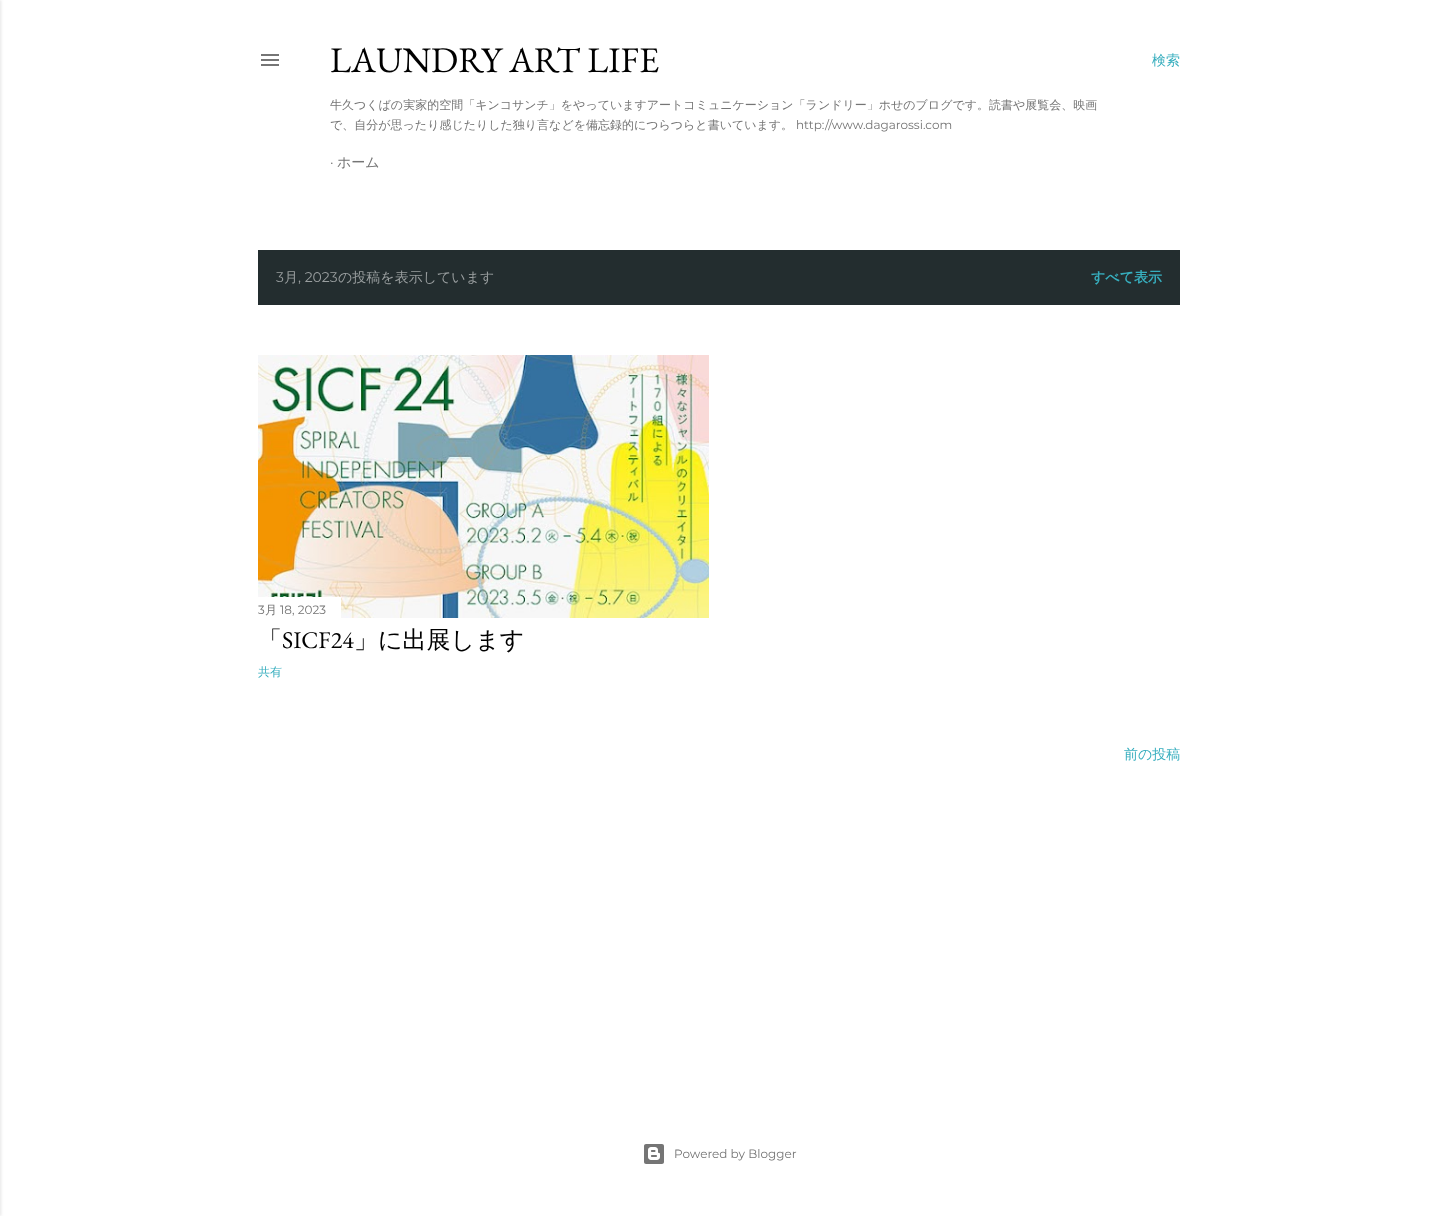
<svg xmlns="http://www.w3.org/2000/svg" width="1438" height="1216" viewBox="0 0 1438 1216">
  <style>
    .t1 { font: 36px EB Garamond; fill: #000; }
    .t2 { font: 500 12px WenQuanYi Zen Hei; fill: #757575; }
    .t3 { font: 12px Montserrat; fill: #757575; }
    .t4 { font: 14px Montserrat; fill: #757575; }
    .t5 { font: 500 14px WenQuanYi Zen Hei; fill: #757575; }
    .t6 { font: 500 14px WenQuanYi Zen Hei; fill: #37aebe; }
    .t7 { font: 14px Montserrat; fill: #999e9f; }
    .t8 { font: 500 14px WenQuanYi Zen Hei; fill: #999e9f; }
    .t9 { font: bold 14px WenQuanYi Zen Hei; fill: #37aebe; }
    .t10 { font: 500 24px WenQuanYi Zen Hei; fill: #000; }
    .t11 { font: 24px EB Garamond; fill: #000; }
    .t12 { font: 500 12px WenQuanYi Zen Hei; fill: #37aebe; }
  </style>
  <rect width="100%" height="100%" fill="#fff"/>
  <rect x="-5" y="0" width="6" height="1216" fill="#0000001a" filter="blur(1.5px)"/>
  <image x="261" y="54" width="18" height="12" href="images/1.png"/>
  <text x="330" y="72" class="t1">LAUNDRY ART LIFE</text>
  <text x="330" y="109" class="t2">牛久つくばの実家的空間「キンコサンチ」をやっていますアートコミュニケーション「ランドリー」ホせのブログです。読書や展覧会、映画</text>
  <text x="330" y="129" class="t2">で、自分が思ったり感じたりした独り言などを備忘録的につらつらと書いています。</text>
  <text x="796" y="129" class="t3">http://www.dagarossi.com</text>
  <text x="330" y="167" class="t4">·</text>
  <text x="337" y="167" class="t5">ホーム</text>
  <text x="1152" y="65" class="t6">検索</text>
  <rect x="258" y="250" width="922" height="55" fill="#232d2f"/>
  <text x="276" y="282" class="t7">3</text>
  <text x="284" y="282" class="t8">月</text>
  <text x="298" y="282" class="t7">, 2023</text>
  <text x="338" y="282" class="t8">の投稿を表示しています</text>
  <text x="1091" y="282" class="t9">すべて表示</text>
  <image x="258" y="355" width="451" height="263" href="images/2.png"/>
  <rect x="258" y="597" width="83" height="21" fill="#fff"/>
  <text x="258" y="614" class="t3">3</text>
  <text x="265" y="614" class="t2">月</text>
  <text x="280" y="614" class="t3">18, 2023</text>
  <text x="258" y="648" class="t10">「</text>
  <text x="282" y="648" class="t11">SICF24</text>
  <text x="354" y="648" class="t10">」に出展します</text>
  <text x="258" y="676" class="t12">共有</text>
  <text x="1124" y="759" class="t6">前の投稿</text>
  <image x="644" y="1144" width="20" height="20" href="images/3.png"/>
  <text x="674" y="1158" class="t3">Powered by Blogger</text>
</svg>
